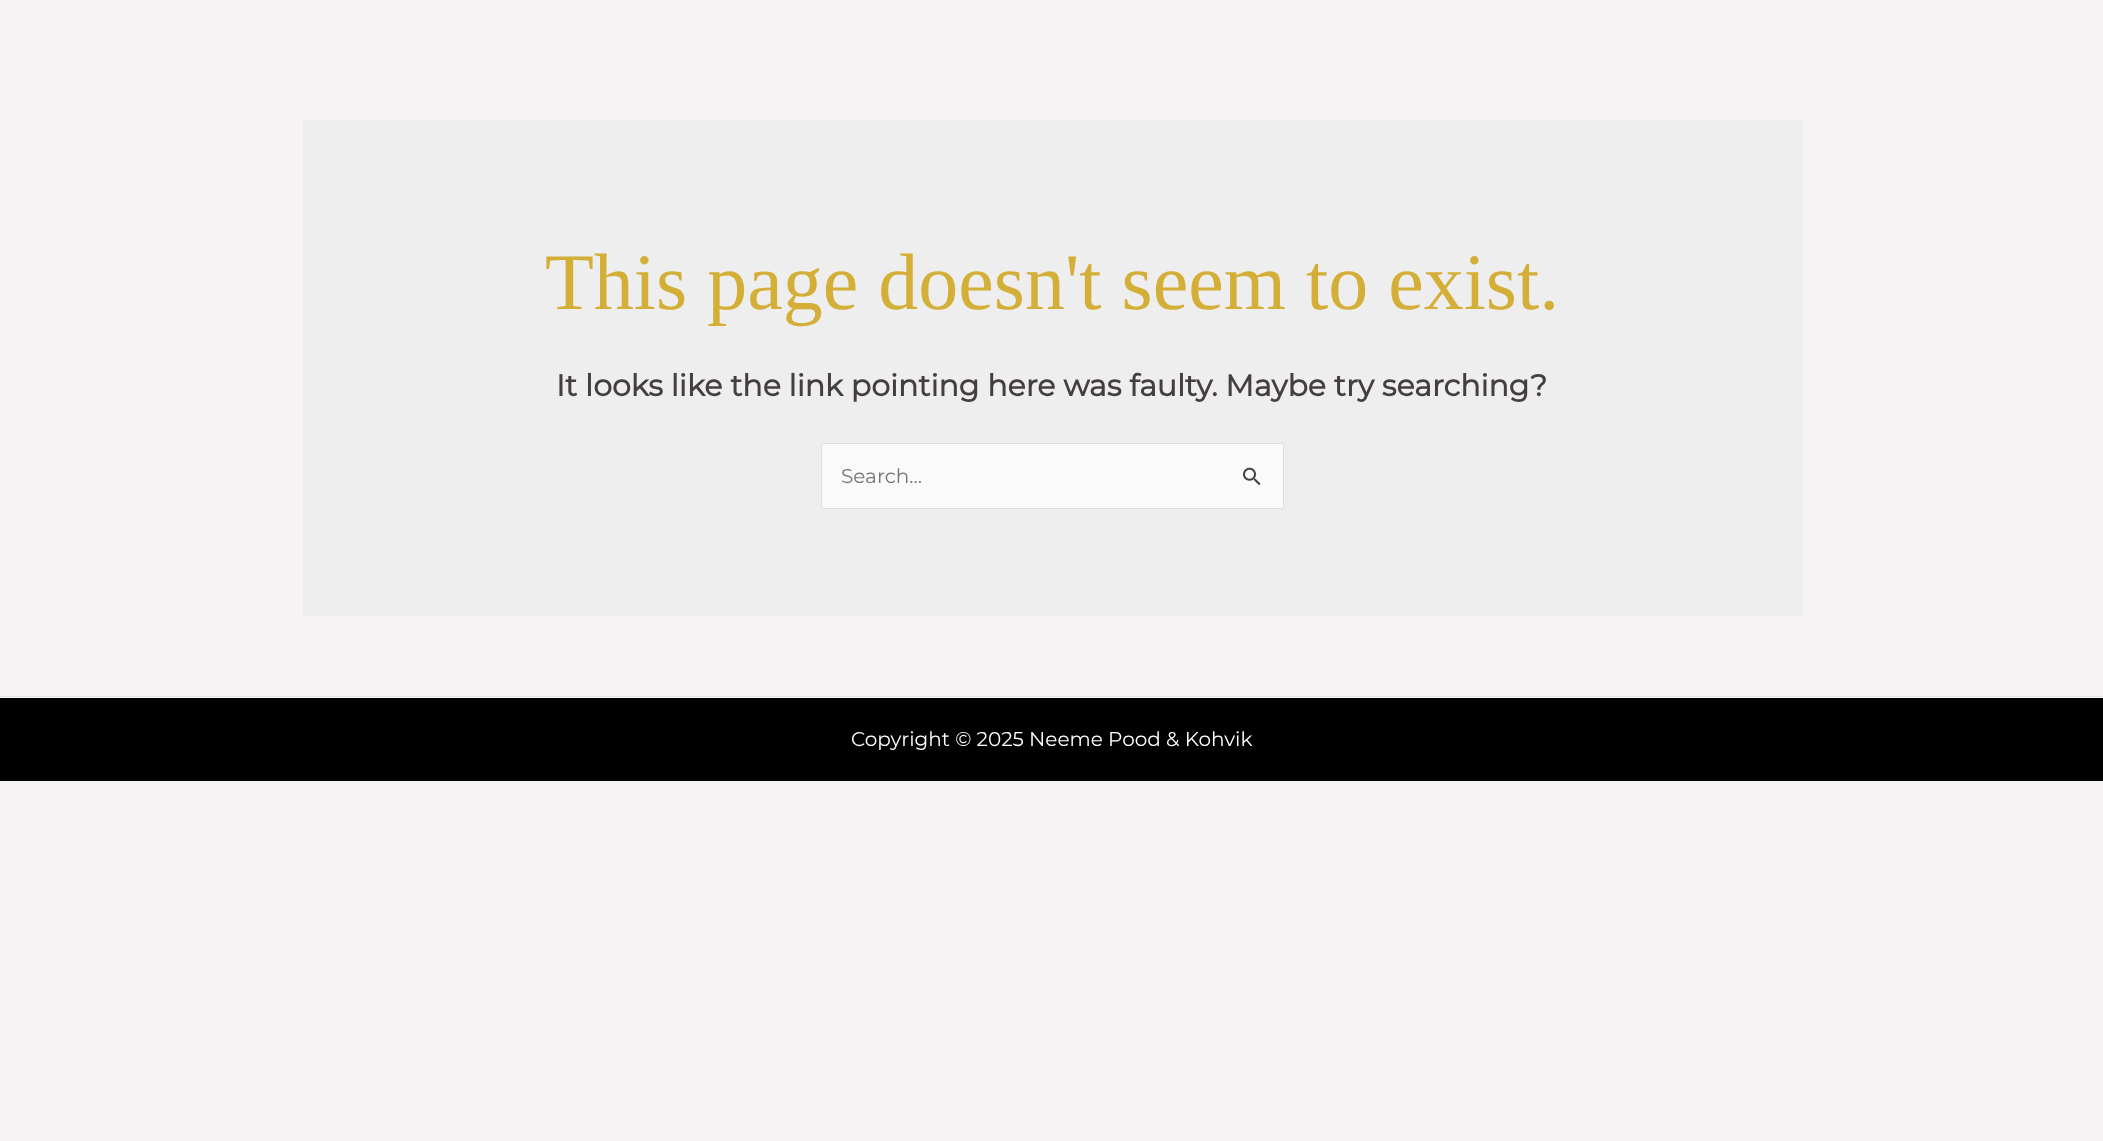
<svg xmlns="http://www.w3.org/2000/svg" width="2103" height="1141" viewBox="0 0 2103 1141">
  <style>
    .t1 { font: 80px Liberation Serif; fill: #d4af37; }
    .t2 { font: bold 30px Montserrat; fill: #453e3e; }
    .t3 { font: 100 20px Montserrat; fill: #757575; }
    .t4 { font: 100 20px Montserrat; fill: #fff; }
  </style>
  <rect width="100%" height="100%" fill="#f7f3f5"/>
  <rect x="303" y="120" width="1500" height="496" fill="#eee"/>
  <text x="545" y="309" class="t1">This page doesn't seem to exist.</text>
  <text x="556" y="396" class="t2">It looks like the link pointing here was faulty. Maybe try searching?</text>
  <rect x="821.5" y="443.5" width="462" height="65" rx="2" fill="#fafafa" stroke="#ddd"/>
  <text x="841" y="483" class="t3">Search...</text>
  <image x="1243" y="467" width="18" height="19" href="images/1.png"/>
  <rect x="0" y="698" width="2103" height="83" fill="#000"/>
  <rect x="0" y="696" width="2103" height="1" fill="#e6e6e6"/>
  <text x="851" y="746" class="t4">Copyright © 2025 Neeme Pood &amp; Kohvik</text>
</svg>
